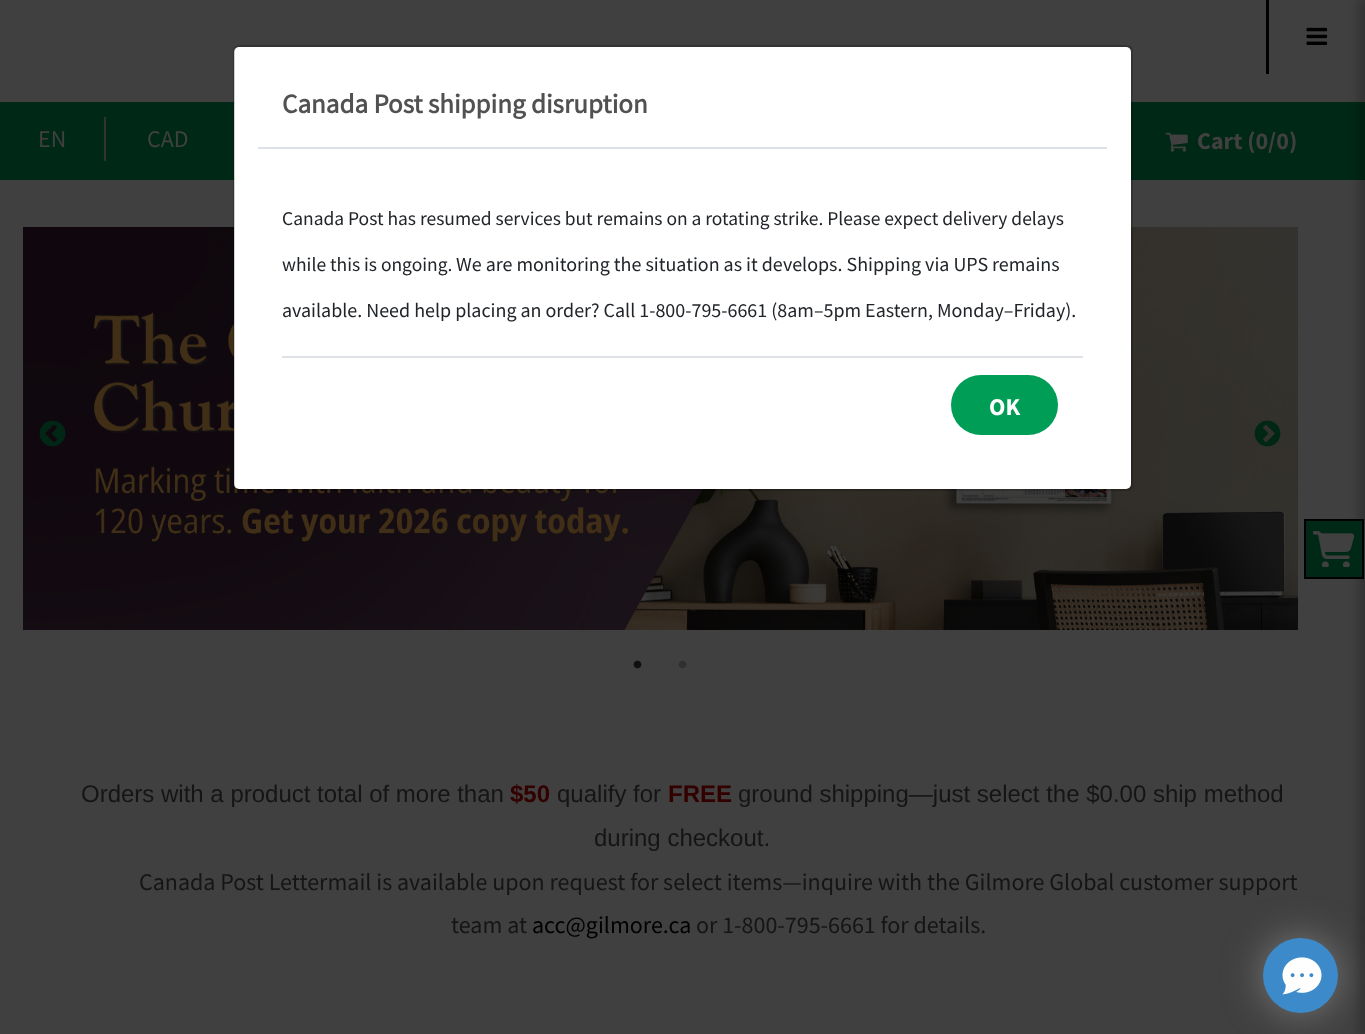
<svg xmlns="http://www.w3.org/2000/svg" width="1365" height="1034">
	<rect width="100%" height="100%" fill="#404040" />
	<rect x="0" y="102" width="1365" height="78" fill="#002816" />
	<image x="23" y="227" width="1275" height="403" href="assets/img4.png" />
	<rect x="234" y="47" width="897" height="442" rx="5" fill="#FFFFFF" />
	<rect x="234" y="46" width="898" height="444" rx="5" fill="none" stroke="#000000" stroke-opacity="0.18" stroke-width="2" />
	<rect x="258" y="147" width="849" height="2" fill="#DEE2E6" />
	<text x="282" y="113" font-family="'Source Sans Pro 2'" font-size="27" font-weight="700" fill="#515151">Canada Post shipping disruption</text>
	<g font-family="Source Sans Pro" font-size="19.5" fill="#212529">
		<text x="282" y="225">Canada Post has resumed services but remains on a rotating strike. Please expect delivery delays</text>
		<text x="282" y="271">while this is ongoing.</text>
	</g>
	<g font-family="Source Sans Pro" font-size="20" fill="#212529">
		<text x="456" y="271">We are monitoring the situation as it develops. Shipping via UPS remains</text>
		<text x="282" y="317">available. Need help placing an order? Call 1-800-795-6661 (8am–5pm Eastern, Monday–Friday).</text>
	</g>
	<rect x="282" y="356" width="801" height="2" fill="#DEE2E6" />
	<rect x="951" y="375" width="107" height="60" rx="30" fill="#009D57" />
	<text x="989" y="415" font-family="Source Sans Pro" font-size="24" font-weight="700" fill="#FFFFFF">OK</text>
	<rect x="1266" y="0" width="3" height="74" fill="#000000" />
	<image x="1306" y="27" width="22" height="18" href="assets/img1.png" />
	<rect x="104" y="117" width="2" height="44" fill="#333333" />
	<g font-family="Source Sans Pro" font-size="24" fill="#404040">
		<text x="38" y="147">EN</text>
		<text x="147" y="147">CAD</text>
	</g>
	<image x="1165" y="132" width="23" height="20" href="assets/img2.png" />
	<text x="1197" y="149" font-family="Source Sans Pro" font-size="24" font-weight="700" fill="#404040">Cart (0/0)</text>
	<rect x="1358" y="0" width="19" height="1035" fill="#000000" fill-opacity="0.2" filter="blur(4px)" />
	<rect x="1305" y="520" width="58" height="58" fill="#002816" stroke="#000000" stroke-width="2" />
	<image x="1313" y="531" width="42" height="36" href="assets/img3.png" />
	<image x="39" y="420" width="27" height="27" href="assets/img5.png" />
	<image x="1254" y="420" width="27" height="27" href="assets/img6.png" />
	<image x="633" y="660" width="9" height="9" href="assets/img7.png" />
	<image x="678" y="660" width="9" height="9" href="assets/img8.png" />
	<text x="81" y="802" font-family="Liberation Sans" font-size="24" fill="#151515">Orders with a product total of more than</text>
	<text x="510" y="802" font-family="Liberation Sans" font-size="24" font-weight="700" fill="#330000">$50</text>
	<text x="557" y="802" font-family="Liberation Sans" font-size="24" fill="#151515">qualify for</text>
	<text x="668" y="802" font-family="Liberation Sans" font-size="24" font-weight="700" fill="#330000">FREE</text>
	<g font-family="Liberation Sans" font-size="24" fill="#151515">
		<text x="738" y="802">ground shipping—just select the $0.00 ship method</text>
		<text x="594" y="846">during checkout.</text>
	</g>
	<g font-family="Source Sans Pro" font-size="24" fill="#151515">
		<text x="139" y="890">Canada Post Lettermail is available upon request for select items—inquire with the Gilmore Global customer support</text>
		<text x="451" y="933">team at</text>
	</g>
	<text x="532" y="933" font-family="Source Sans Pro" font-size="24" fill="#000000">acc@gilmore.ca</text>
	<text x="696" y="933" font-family="Source Sans Pro" font-size="24" fill="#151515">or 1-800-795-6661 for details.</text>
	<rect x="1263" y="938" width="75" height="75" rx="37.5" fill="#7A7A7A" filter="blur(19px)" />
	<circle cx="1300.5" cy="975.5" r="37.5" fill="#3C8AC9" />
	<image x="1282" y="957" width="40" height="38" href="assets/img9.png" />
</svg>
